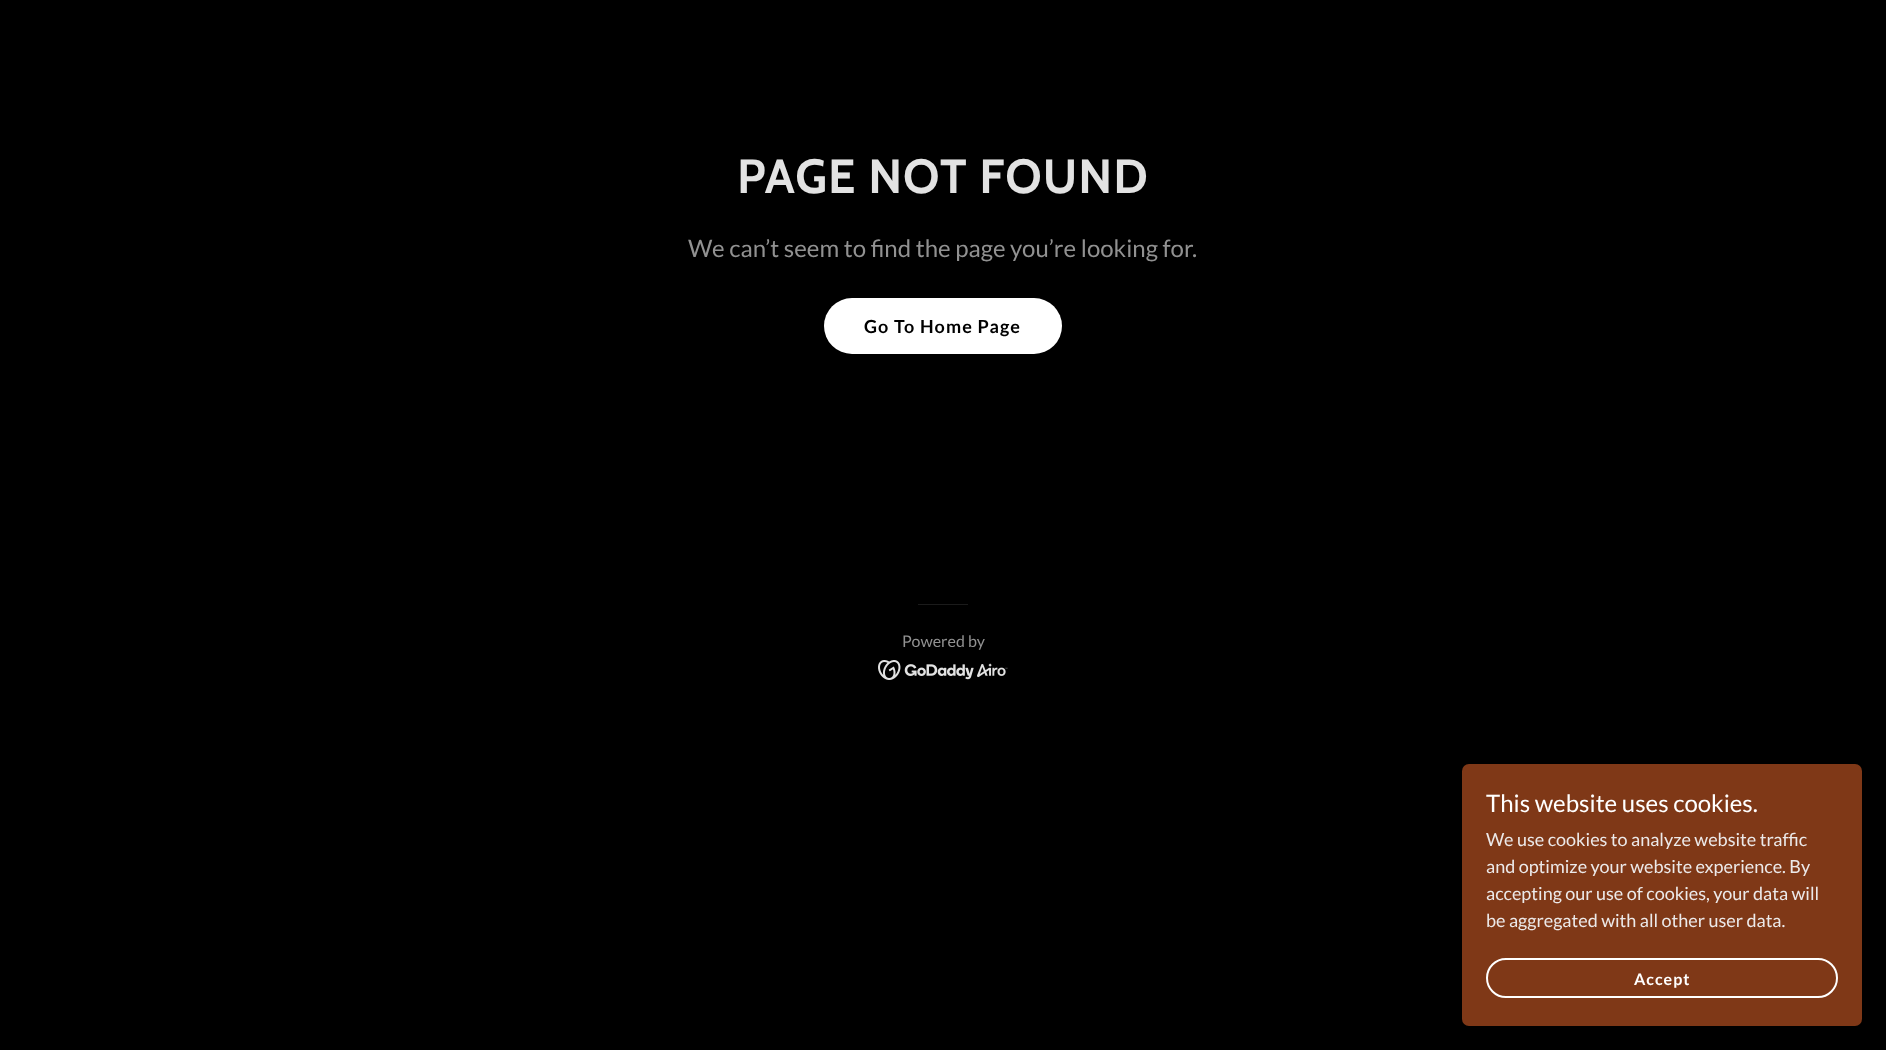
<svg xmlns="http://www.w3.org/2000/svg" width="1886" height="1050">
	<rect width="100%" height="100%" fill="#000000" />
	<text x="737" y="193" font-family="Cabin" font-size="48" font-weight="700" letter-spacing="1" fill="#E2E2E2">PAGE NOT FOUND</text>
	<text x="688" y="257" font-family="Lato" font-size="24" fill="#919191">We can’t seem to find the page you’re looking for.</text>
	<rect x="824" y="298" width="238" height="56" rx="28" fill="#FFFFFF" />
	<text x="864" y="333" font-family="Lato" font-size="18" font-weight="700" letter-spacing="1.1" fill="#000000">Go To Home Page</text>
	<rect x="918" y="604" width="50" height="1" fill="#1B1B1B" />
	<text x="902" y="647" font-family="Lato" font-size="16" fill="#919191">Powered by</text>
	<image x="878" y="660" width="130" height="20" href="assets/img1.png" />
	<rect x="1462" y="764" width="400" height="262" rx="7" fill="#7F3817" />
	<text x="1486" y="812" font-family="Lato" font-size="24" fill="#FFFFFF">This website uses cookies.</text>
	<g font-family="Lato" font-size="18" fill="#ECE9E9">
		<text x="1486" y="846">We use cookies to analyze website traffic</text>
		<text x="1486" y="873">and optimize your website experience. By</text>
		<text x="1486" y="900">accepting our use of cookies, your data will</text>
		<text x="1486" y="927">be aggregated with all other user data.</text>
	</g>
	<rect x="1487" y="959" width="350" height="38" rx="19" fill="none" stroke="#FFFFFF" stroke-width="2" />
	<text x="1634" y="985" font-family="Lato" font-size="16" font-weight="700" letter-spacing="1" fill="#FFFFFF">Accept</text>
</svg>
